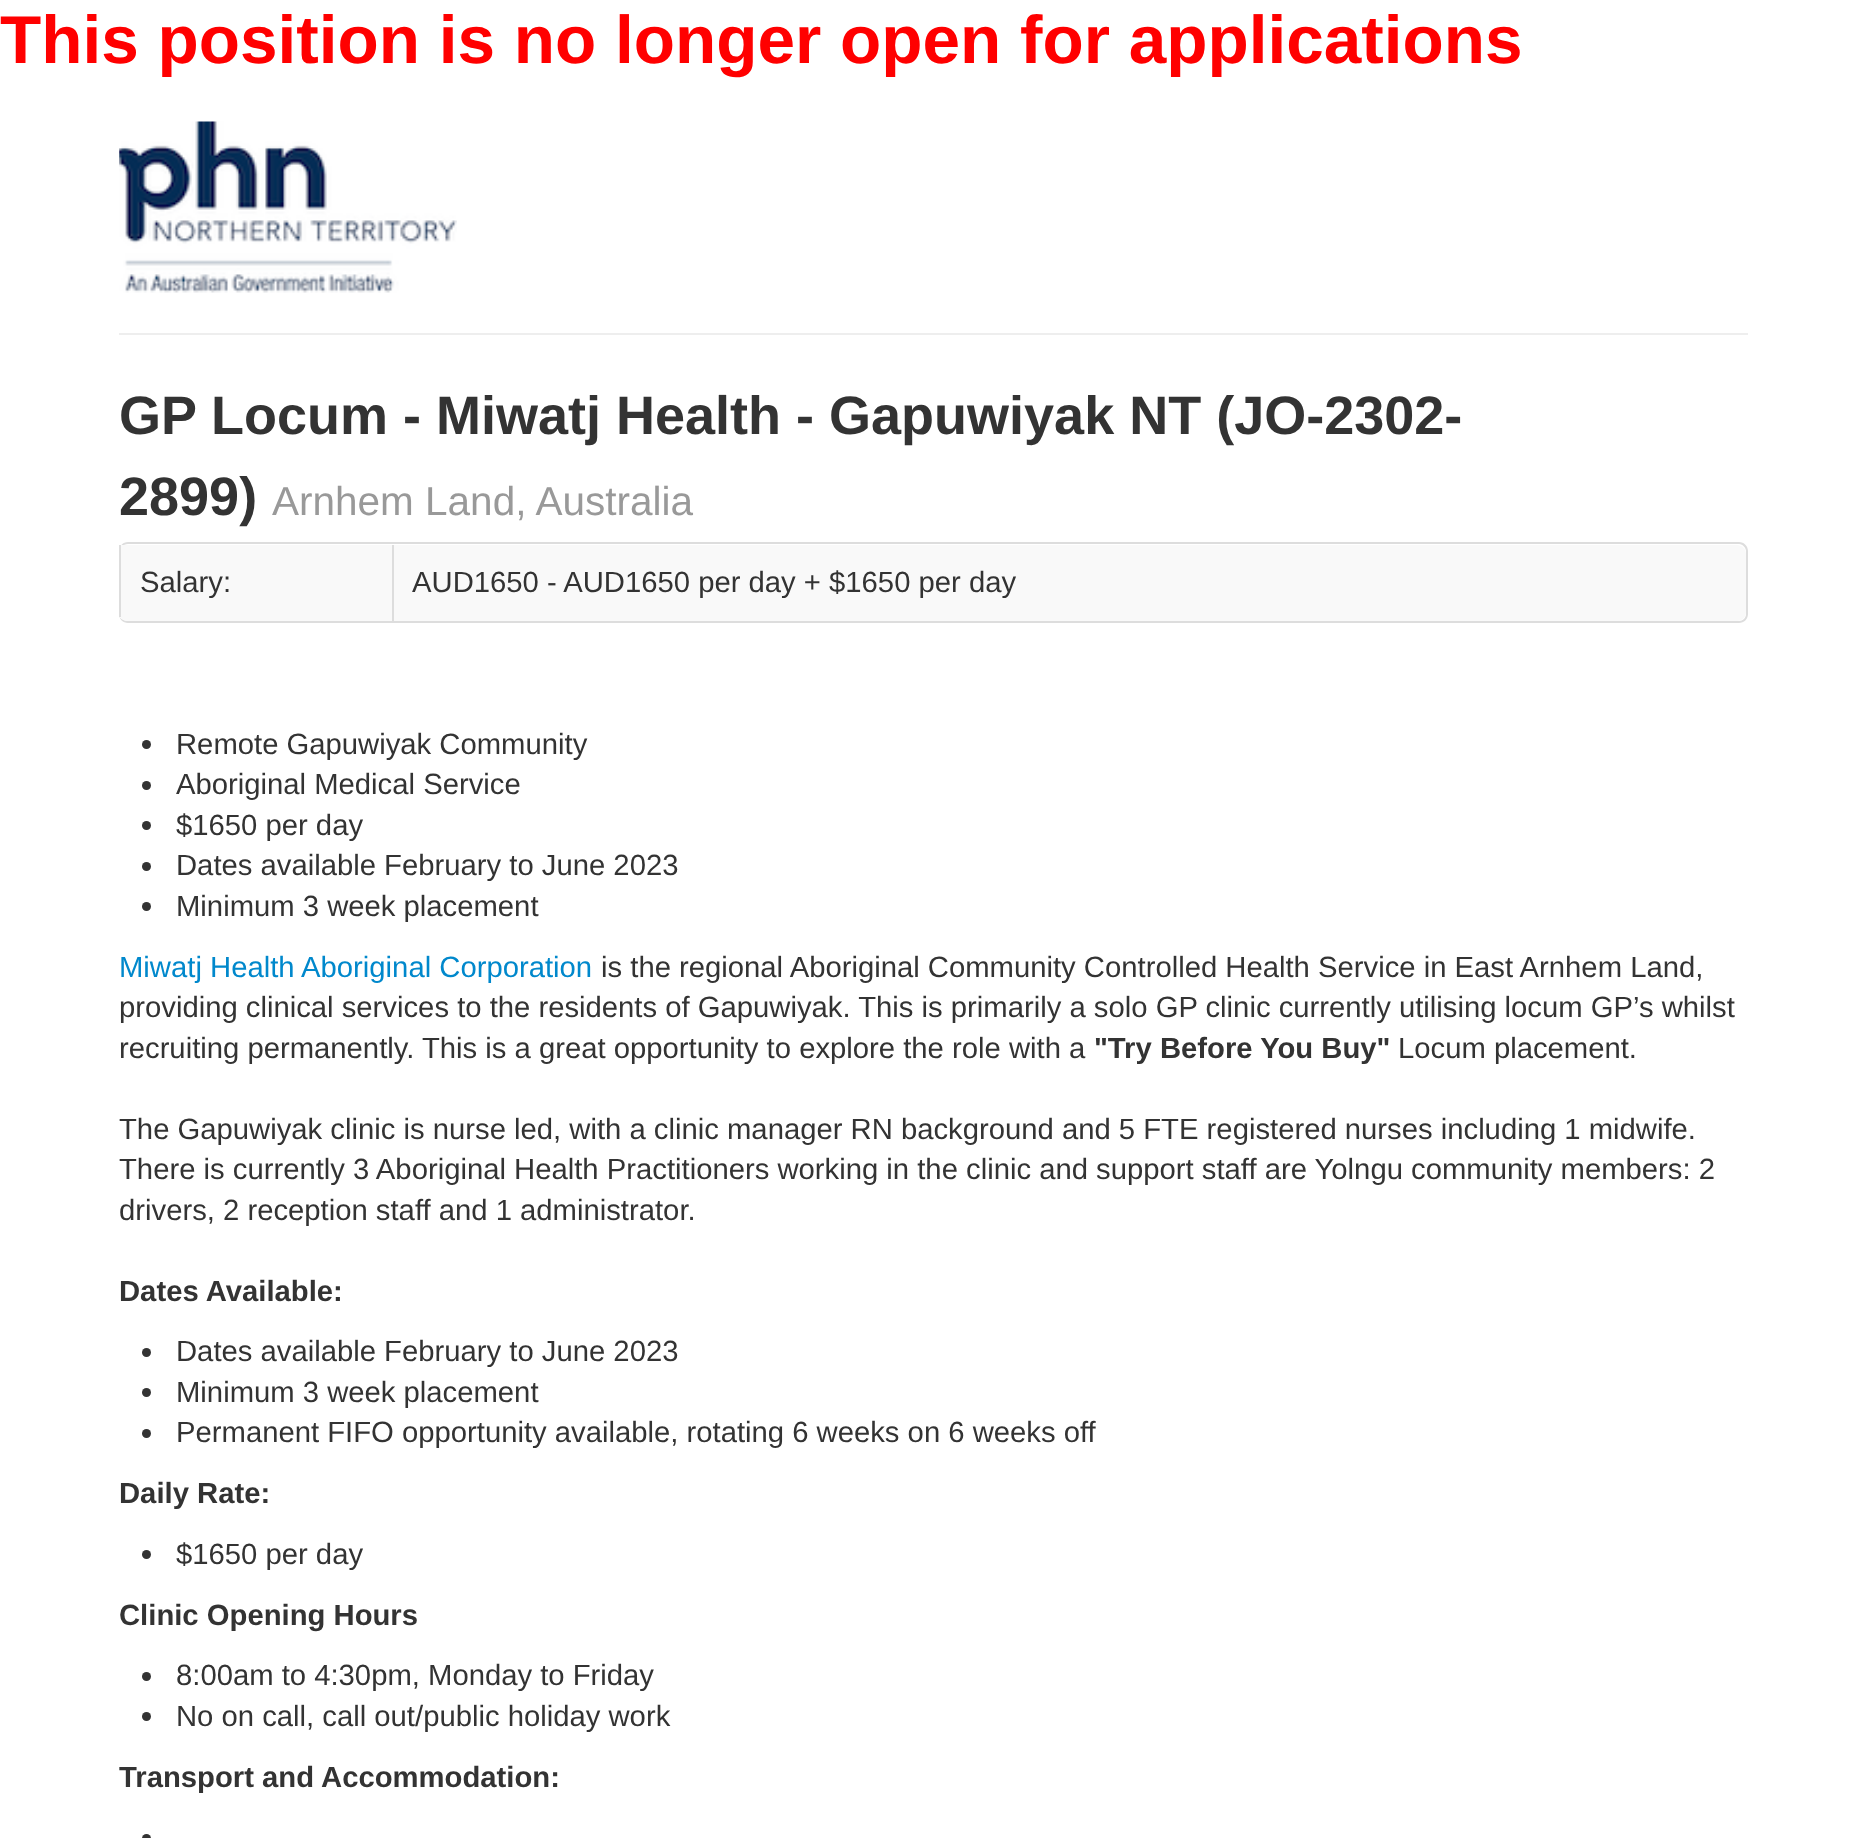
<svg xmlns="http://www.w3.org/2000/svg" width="1866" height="1838">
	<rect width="100%" height="100%" fill="#FFFFFF" />
	<text x="0" y="63" font-family="Liberation Sans" font-size="67.5" font-weight="700" fill="#FF0000">This position is no longer open for applications</text>
	<rect x="119" y="333" width="1629" height="2" fill="#EEEEEE" />
	<image x="119" y="121" width="338" height="172" href="assets/img1.png" />
	<g font-family="Liberation Sans" font-size="54" font-weight="700" fill="#333333">
		<text x="119" y="434">GP Locum - Miwatj Health - Gapuwiyak NT (JO-2302-</text>
		<text x="119" y="515">2899)</text>
	</g>
	<text x="272" y="515" font-family="Liberation Sans" font-size="40.5" fill="#999999">Arnhem Land, Australia</text>
	<path d="M128 542H1739C1744 542 1748 546 1748 551V614C1748 619 1744 623 1739 623H128C123 623 119 619 119 614V551C119 546 123 542 128 542ZM128 544H1739C1743 544 1746 548 1746 551V614C1746 618 1743 621 1739 621H128C123 621 119 618 119 614V551C119 548 123 544 128 544Z" fill="#DDDDDD" fill-rule="evenodd" />
	<path d="M119 545H392V621H128C123 621 119 617 119 612Z" fill="#F9F9F9" />
	<rect x="119" y="545" width="2" height="72" fill="#DDDDDD" />
	<text x="140" y="592" font-family="Liberation Sans" font-size="29.25" fill="#333333">Salary:</text>
	<path d="M392 545H1737C1742 545 1746 549 1746 554V612C1746 617 1742 621 1737 621H392Z" fill="#F9F9F9" />
	<rect x="392" y="545" width="2" height="76" fill="#DDDDDD" />
	<text x="412" y="592" font-family="Liberation Sans" font-size="29.25" fill="#333333">AUD1650 - AUD1650 per day + $1650 per day</text>
	<circle cx="146.5" cy="744.5" r="4.5" fill="#333333" />
	<text x="176" y="754" font-family="Liberation Sans" font-size="29.25" fill="#333333">Remote Gapuwiyak Community</text>
	<circle cx="146.5" cy="785.5" r="4.5" fill="#333333" />
	<text x="176" y="794" font-family="Liberation Sans" font-size="29.25" fill="#333333">Aboriginal Medical Service</text>
	<circle cx="146.5" cy="825.5" r="4.5" fill="#333333" />
	<text x="176" y="835" font-family="Liberation Sans" font-size="29.25" fill="#333333">$1650 per day</text>
	<circle cx="146.5" cy="866.5" r="4.5" fill="#333333" />
	<text x="176" y="875" font-family="Liberation Sans" font-size="29.25" fill="#333333">Dates available February to June 2023</text>
	<circle cx="146.5" cy="906.5" r="4.5" fill="#333333" />
	<text x="176" y="916" font-family="Liberation Sans" font-size="29.25" fill="#333333">Minimum 3 week placement</text>
	<text x="119" y="977" font-family="Liberation Sans" font-size="29.25" fill="#0088CC">Miwatj Health Aboriginal Corporation</text>
	<g font-family="Liberation Sans" font-size="29.25" fill="#333333">
		<text x="601" y="977">is the regional Aboriginal Community Controlled Health Service in East Arnhem Land,</text>
		<text x="119" y="1017">providing clinical services to the residents of Gapuwiyak. This is primarily a solo GP clinic currently utilising locum GP’s whilst</text>
		<text x="119" y="1058">recruiting permanently. This is a great opportunity to explore the role with a</text>
	</g>
	<text x="1094" y="1058" font-family="Liberation Sans" font-size="29.25" font-weight="700" fill="#333333">"Try Before You Buy"</text>
	<g font-family="Liberation Sans" font-size="29.25" fill="#333333">
		<text x="1398" y="1058">Locum placement.</text>
		<text x="119" y="1139">The Gapuwiyak clinic is nurse led, with a clinic manager RN background and 5 FTE registered nurses including 1 midwife.</text>
		<text x="119" y="1179">There is currently 3 Aboriginal Health Practitioners working in the clinic and support staff are Yolngu community members: 2</text>
		<text x="119" y="1220">drivers, 2 reception staff and 1 administrator.</text>
	</g>
	<text x="119" y="1301" font-family="Liberation Sans" font-size="29.25" font-weight="700" fill="#333333">Dates Available:</text>
	<circle cx="146.5" cy="1352.5" r="4.5" fill="#333333" />
	<text x="176" y="1361" font-family="Liberation Sans" font-size="29.25" fill="#333333">Dates available February to June 2023</text>
	<circle cx="146.5" cy="1392.5" r="4.5" fill="#333333" />
	<text x="176" y="1402" font-family="Liberation Sans" font-size="29.25" fill="#333333">Minimum 3 week placement</text>
	<circle cx="146.5" cy="1433.5" r="4.5" fill="#333333" />
	<text x="176" y="1442" font-family="Liberation Sans" font-size="29.25" fill="#333333">Permanent FIFO opportunity available, rotating 6 weeks on 6 weeks off</text>
	<text x="119" y="1503" font-family="Liberation Sans" font-size="29.25" font-weight="700" fill="#333333">Daily Rate:</text>
	<circle cx="146.5" cy="1554.5" r="4.5" fill="#333333" />
	<text x="176" y="1564" font-family="Liberation Sans" font-size="29.25" fill="#333333">$1650 per day</text>
	<text x="119" y="1625" font-family="Liberation Sans" font-size="29.25" font-weight="700" fill="#333333">Clinic Opening Hours</text>
	<circle cx="146.5" cy="1676.5" r="4.5" fill="#333333" />
	<text x="176" y="1685" font-family="Liberation Sans" font-size="29.25" fill="#333333">8:00am to 4:30pm, Monday to Friday</text>
	<circle cx="146.5" cy="1716.5" r="4.5" fill="#333333" />
	<text x="176" y="1726" font-family="Liberation Sans" font-size="29.25" fill="#333333">No on call, call out/public holiday work</text>
	<text x="119" y="1787" font-family="Liberation Sans" font-size="29.25" font-weight="700" fill="#333333">Transport and Accommodation:</text>
	<circle cx="146.5" cy="1838.5" r="4.5" fill="#333333" />
</svg>
